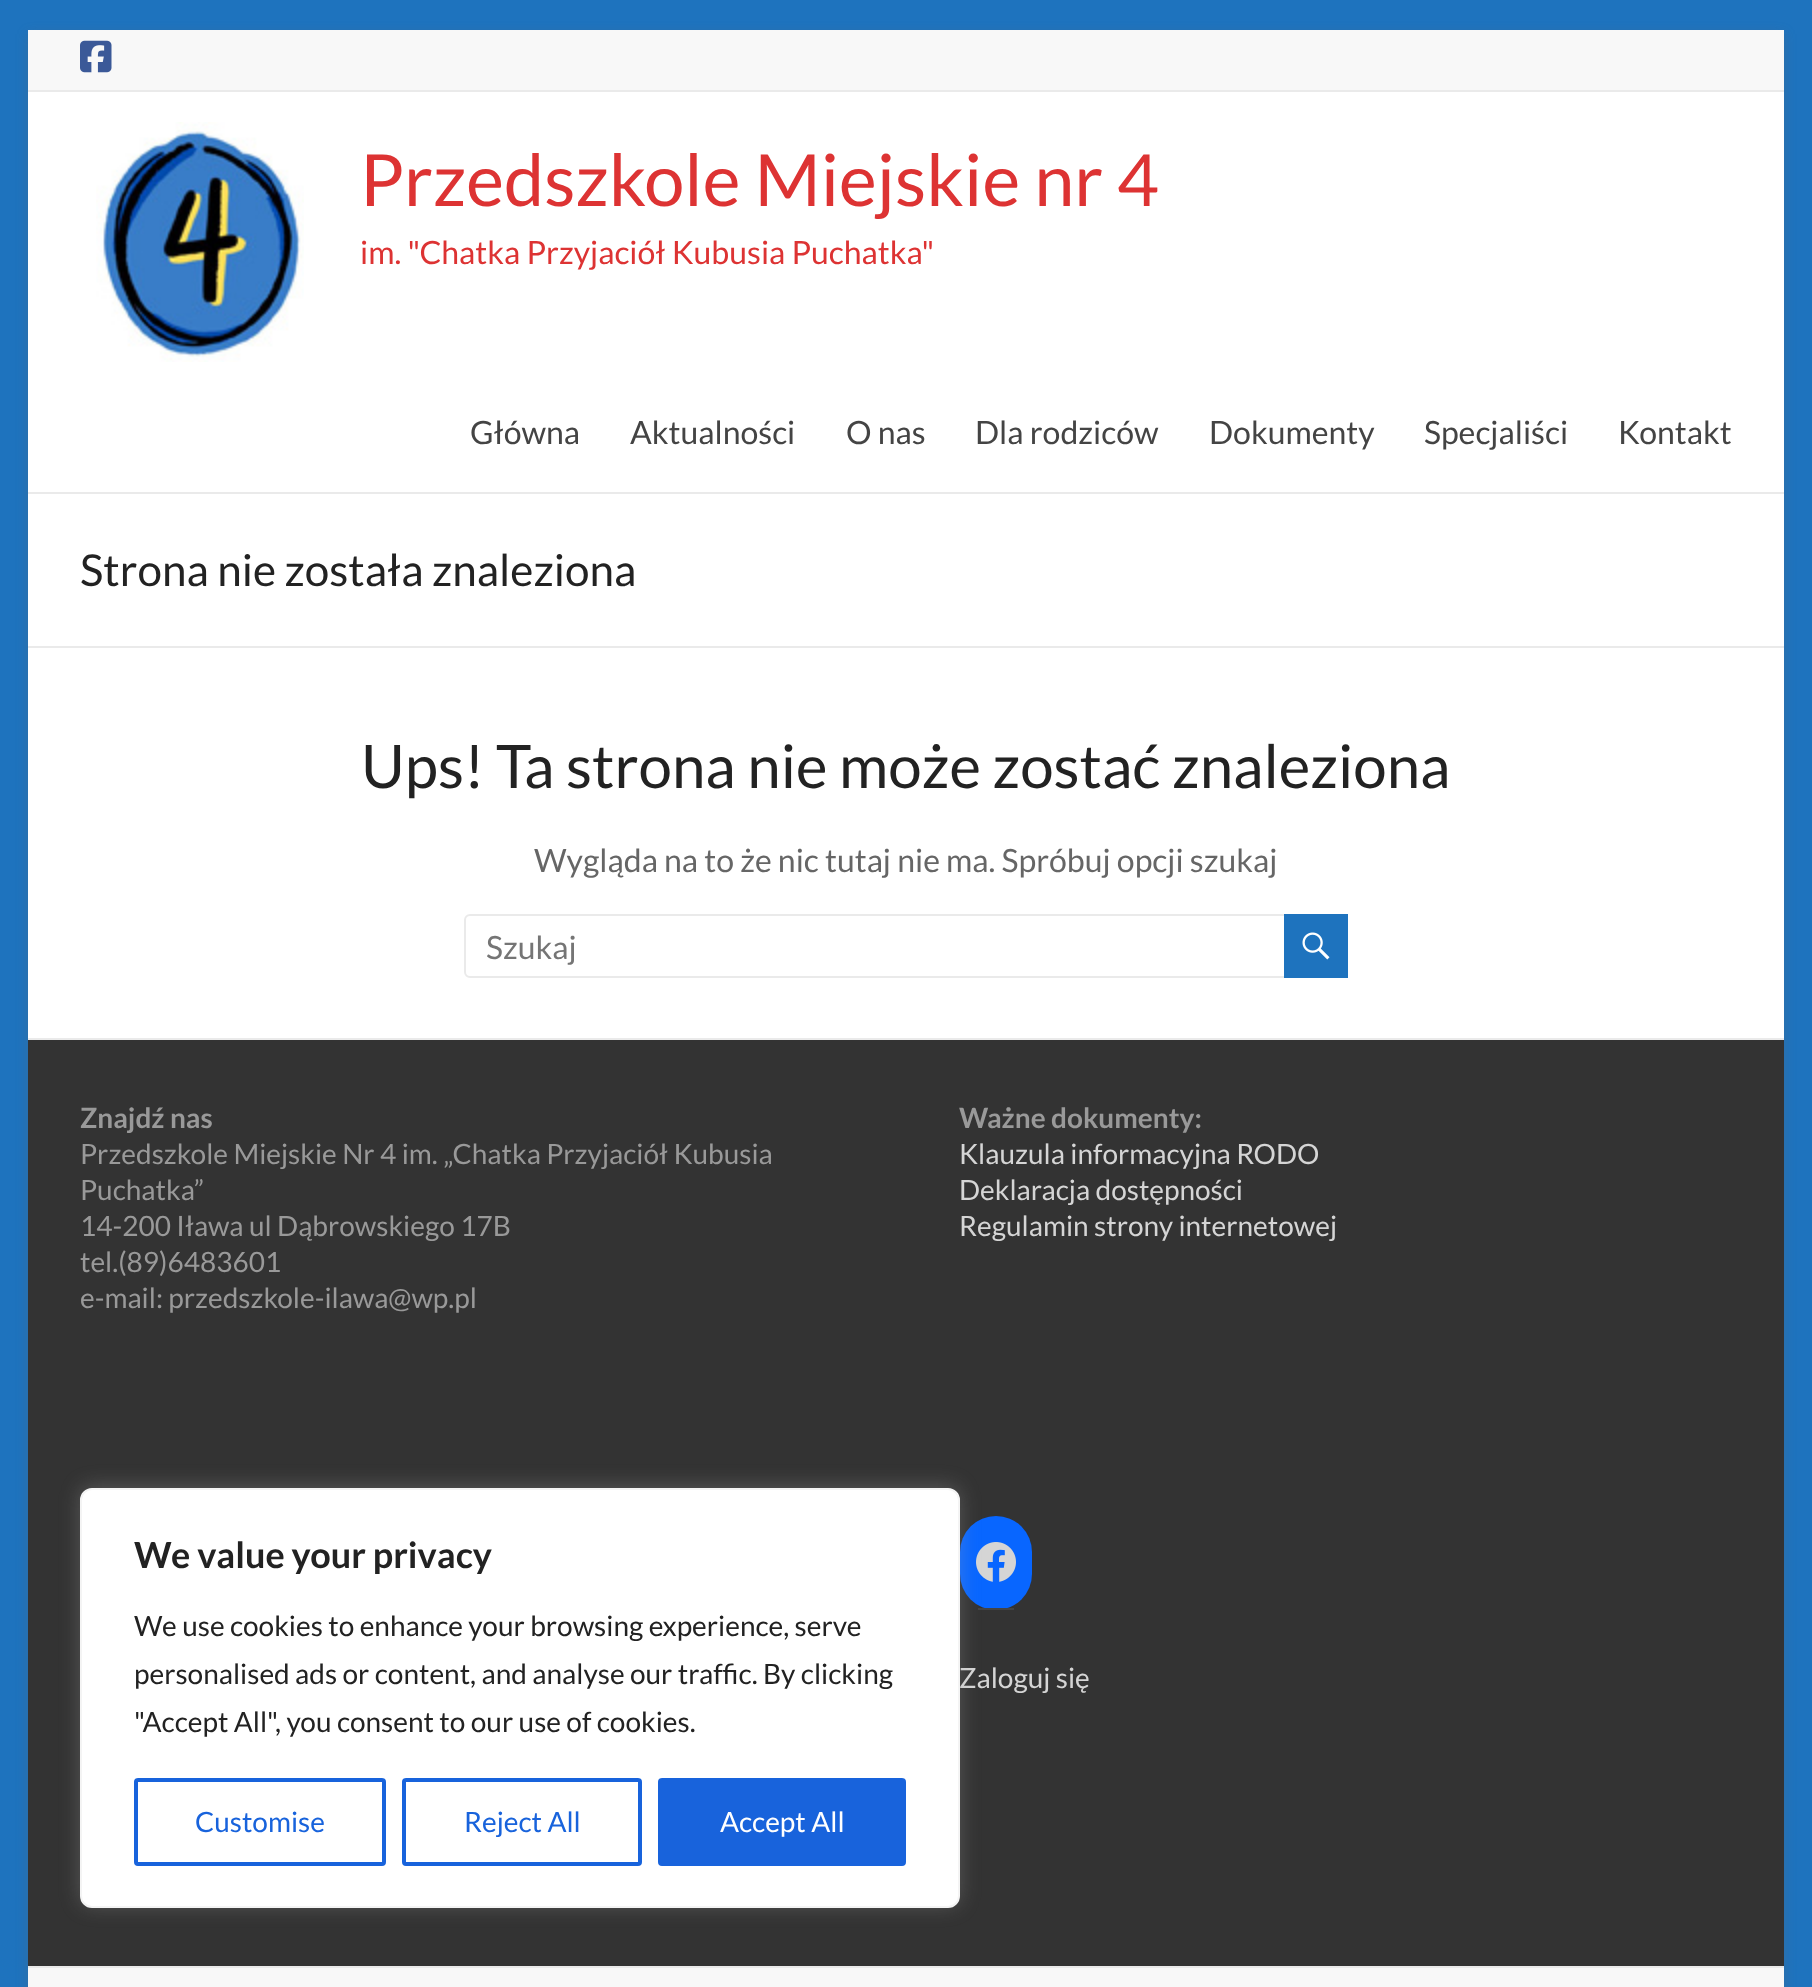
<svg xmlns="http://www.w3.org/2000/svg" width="1812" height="1987">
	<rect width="100%" height="100%" fill="#1E73BE" />
	<rect x="28" y="34" width="1756" height="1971" fill="#646464" fill-opacity="0.3" filter="blur(6px)" />
	<rect x="28" y="92" width="1756" height="946" fill="#FFFFFF" />
	<rect x="28" y="30" width="1756" height="60" fill="#F8F8F8" />
	<rect x="28" y="90" width="1756" height="2" fill="#EAEAEA" />
	<image x="80" y="40" width="32" height="33" href="assets/img1.png" />
	<rect x="28" y="492" width="1756" height="2" fill="#EAEAEA" />
	<image x="96" y="122" width="208" height="240" href="assets/img2.png" />
	<text x="360" y="206" font-family="Lato" font-size="72" fill="#DD3333">Przedszkole Miejskie nr 4</text>
	<text x="360" y="264" font-family="Lato" font-size="32" fill="#DD3333">im. "Chatka Przyjaciół Kubusia Puchatka"</text>
	<g font-family="Lato" font-size="32" fill="#444444">
		<text x="470" y="444">Główna</text>
		<text x="630" y="444">Aktualności</text>
		<text x="846" y="444">O nas</text>
		<text x="975" y="444">Dla rodziców</text>
		<text x="1209" y="444">Dokumenty</text>
		<text x="1424" y="444">Specjaliści</text>
		<text x="1618" y="444">Kontakt</text>
	</g>
	<rect x="28" y="646" width="1756" height="2" fill="#EAEAEA" />
	<text x="80" y="586" font-family="Lato" font-size="44" fill="#222222">Strona nie została znaleziona</text>
	<text x="361" y="788" font-family="Lato" font-size="60" fill="#222222">Ups! Ta strona nie może zostać znaleziona</text>
	<text x="534" y="872" font-family="Lato" font-size="32" fill="#666666">Wygląda na to że nic tutaj nie ma. Spróbuj opcji szukaj</text>
	<rect x="465" y="915" width="824" height="62" rx="5" fill="none" stroke="#EAEAEA" stroke-width="2" />
	<text x="486" y="959" font-family="Lato" font-size="32" fill="#757575">Szukaj</text>
	<rect x="1284" y="914" width="64" height="64" fill="#1E73BE" />
	<image x="1302" y="932" width="28" height="28" href="assets/img3.png" />
	<rect x="28" y="1040" width="1756" height="926" fill="#333333" />
	<rect x="28" y="1038" width="1756" height="2" fill="#EAEAEA" />
	<text x="80" y="1128" font-family="Lato" font-size="28" font-weight="700" fill="#999999">Znajdź nas</text>
	<g font-family="Lato" font-size="28" fill="#999999">
		<text x="80" y="1164">Przedszkole Miejskie Nr 4 im. „Chatka Przyjaciół Kubusia</text>
		<text x="80" y="1200">Puchatka”</text>
		<text x="80" y="1236">14-200 Iława ul Dąbrowskiego 17B</text>
		<text x="80" y="1272">tel.(89)6483601</text>
		<text x="80" y="1308">e-mail: przedszkole-ilawa@wp.pl</text>
	</g>
	<text x="959" y="1128" font-family="Lato" font-size="28" font-weight="700" fill="#999999">Ważne dokumenty:</text>
	<g font-family="Lato" font-size="28" fill="#D5D5D5">
		<text x="959" y="1164">Klauzula informacyjna RODO</text>
		<text x="959" y="1200">Deklaracja dostępności</text>
		<text x="959" y="1236">Regulamin strony internetowej</text>
	</g>
	<rect x="960" y="1516" width="72" height="94" rx="36" fill="#0866FF" />
	<rect x="978" y="1608" width="36" height="2" fill="#444444" />
	<image x="976" y="1542" width="40" height="40" href="assets/img4.png" />
	<text x="959" y="1688" font-family="Lato" font-size="28" fill="#D5D5D5">Zaloguj się</text>
	<rect x="28" y="1968" width="1756" height="19" fill="#F8F8F8" />
	<rect x="28" y="1966" width="1756" height="2" fill="#EAEAEA" />
	<rect x="80" y="1486" width="880" height="420" rx="12" fill="#ACABAB" fill-opacity="0.3" filter="blur(10px)" />
	<rect x="81" y="1489" width="878" height="418" rx="11" fill="#FFFFFF" stroke="#F4F4F4" stroke-width="2" />
	<text x="134" y="1568" font-family="Lato" font-size="36" font-weight="700" fill="#222222">We value your privacy</text>
	<g font-family="Lato" font-size="28" fill="#222222">
		<text x="134" y="1636">We use cookies to enhance your browsing experience, serve</text>
		<text x="134" y="1684">personalised ads or content, and analyse our traffic. By clicking</text>
		<text x="134" y="1732">"Accept All", you consent to our use of cookies.</text>
	</g>
	<rect x="136" y="1780" width="248" height="84" rx="2" fill="none" stroke="#1863DC" stroke-width="4" />
	<text x="195" y="1832" font-family="Lato" font-size="28" fill="#1863DC">Customise</text>
	<rect x="404" y="1780" width="236" height="84" rx="2" fill="none" stroke="#1863DC" stroke-width="4" />
	<text x="464" y="1832" font-family="Lato" font-size="28" fill="#1863DC">Reject All</text>
	<rect x="660" y="1780" width="244" height="84" rx="2" fill="#1863DC" stroke="#1863DC" stroke-width="4" />
	<text x="720" y="1832" font-family="Lato" font-size="28" fill="#FFFFFF">Accept All</text>
</svg>
